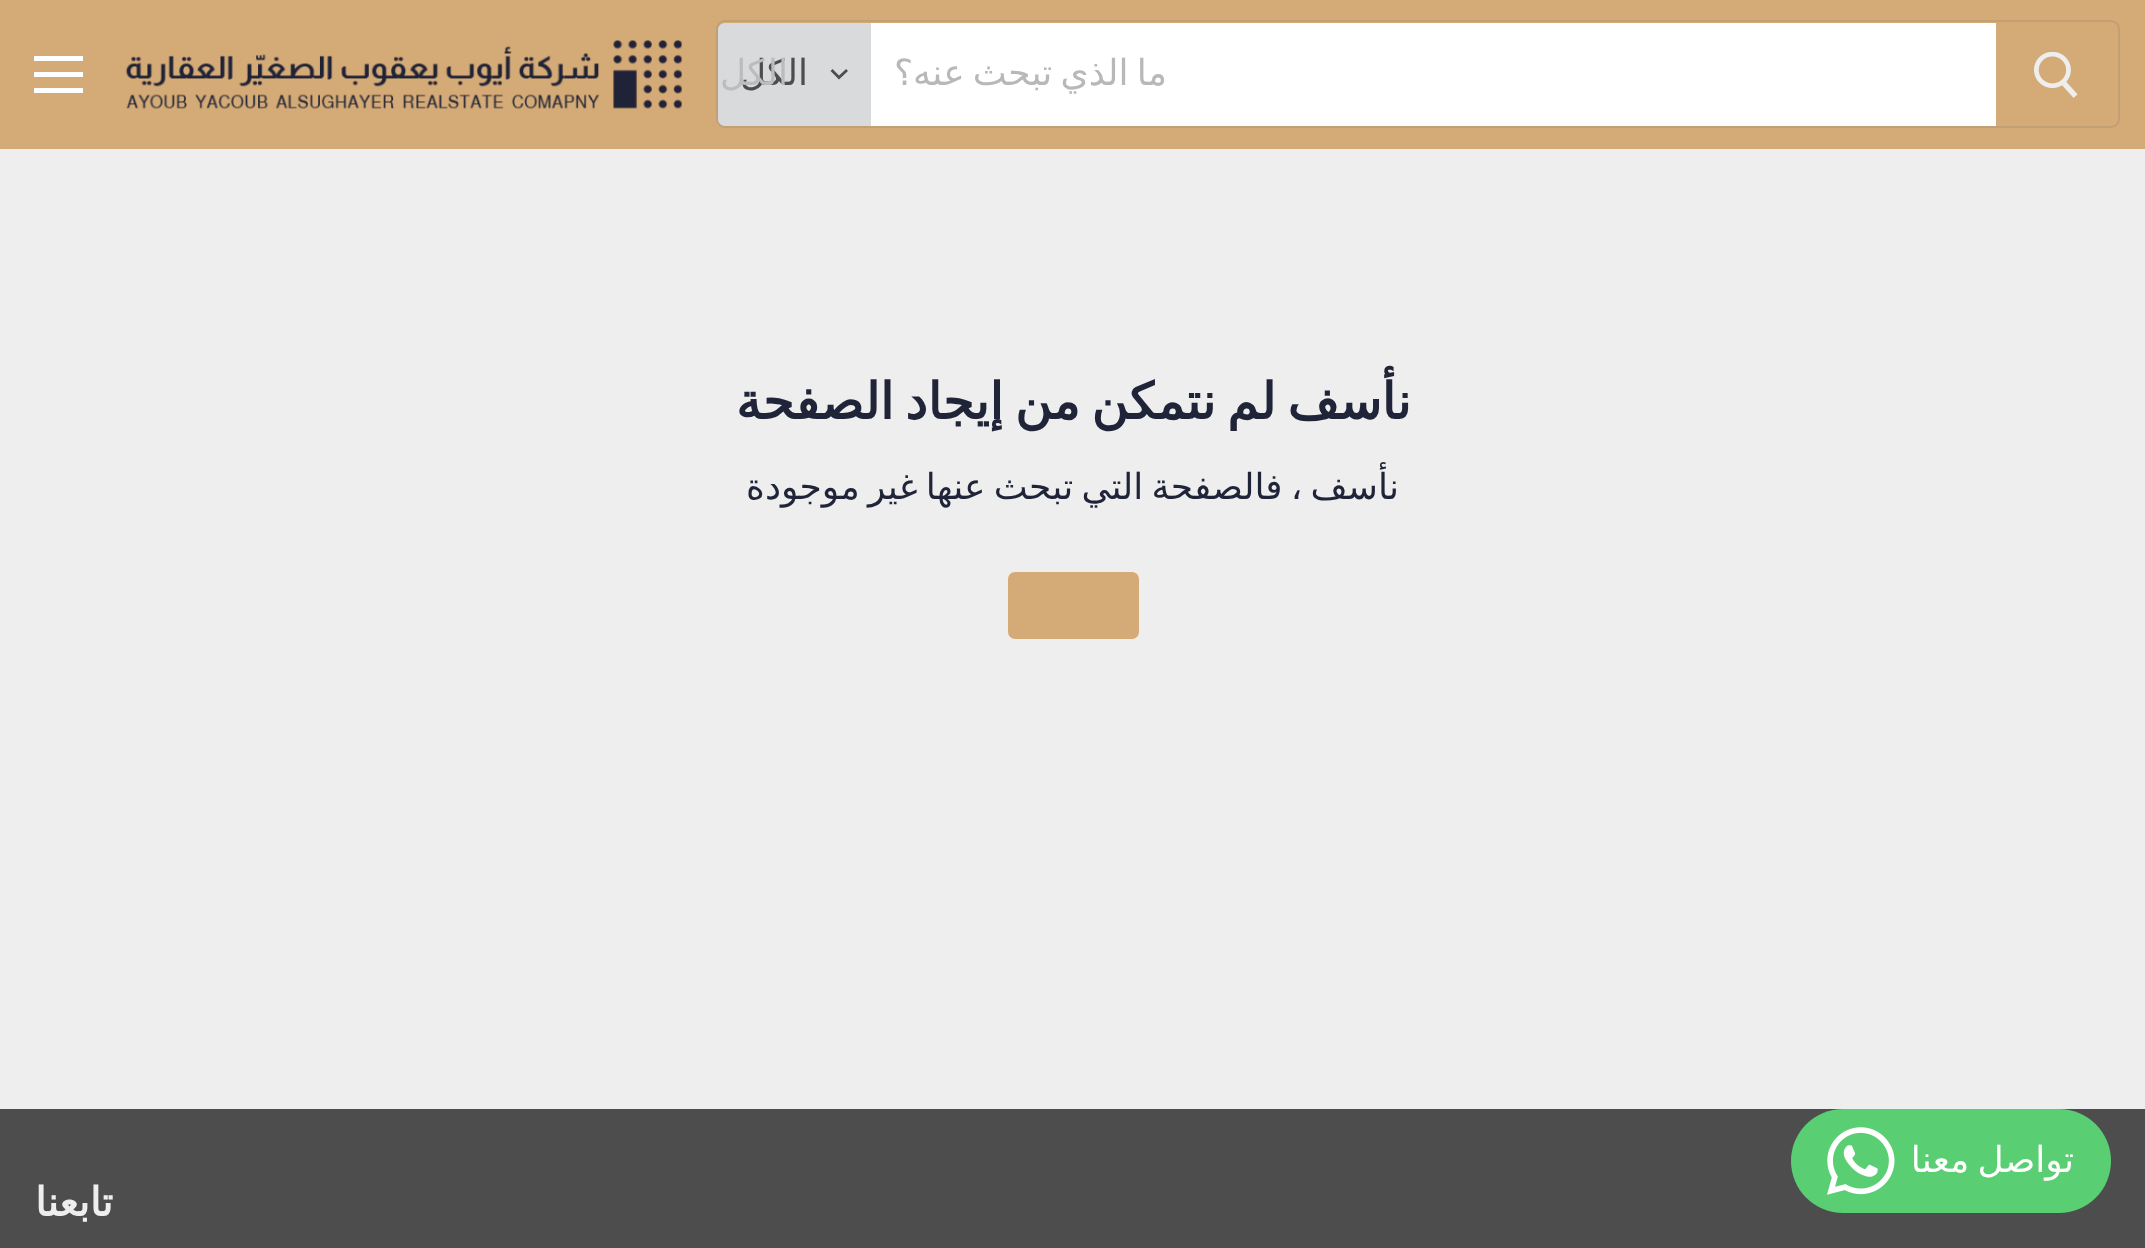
<svg xmlns="http://www.w3.org/2000/svg" width="2145" height="1248">
	<rect width="100%" height="100%" fill="#EEEEEE" />
	<rect x="0" y="0" width="2145" height="149" fill="#D4AB77" />
	<rect x="717" y="21" width="1402" height="106" rx="8" fill="none" stroke="#777777" stroke-opacity="0.2" stroke-width="2" />
	<image x="2034" y="52" width="44" height="46" href="assets/img1.png" />
	<rect x="871" y="23" width="1125" height="103" fill="#FFFFFF" />
	<text x="1167" y="85" word-spacing="-3.25" font-family="DejaVu Sans" font-size="36" direction="rtl" fill="#B8B8B8">ما الذي تبحث عنه؟</text>
	<path d="M725 23H871V126H725C721 126 718 123 718 119V30C718 26 721 23 725 23Z" fill="#D9DADC" />
	<text x="808" y="85" font-family="DejaVu Sans" font-size="36" direction="rtl" fill="#4D4D4D">الكل</text>
	<text x="788" y="85" font-family="DejaVu Sans" font-size="36" direction="rtl" fill="#BBBCBE">الكل</text>
	<path d="M839 77.5L846 71M839 77.5L832.5 71" fill="none" stroke="#4D4D4D" stroke-width="2.8" stroke-linecap="square" />
	<image x="125" y="40" width="557" height="69" href="assets/img2.png" />
	<rect x="34" y="56" width="49" height="5" fill="#FFFFFF" />
	<rect x="34" y="72" width="49" height="5" fill="#FFFFFF" />
	<rect x="34" y="88" width="49" height="5" fill="#FFFFFF" />
	<text x="1411" y="419" word-spacing="-4.75" font-family="DejaVu Sans" font-size="50.4" font-weight="700" direction="rtl" fill="#1F2438">نأسف لم نتمكن من إيجاد الصفحة</text>
	<text x="1399" y="499" word-spacing="-3.25" font-family="DejaVu Sans" font-size="36" direction="rtl" fill="#1F2438">نأسف ، فالصفحة التي تبحث عنها غير موجودة</text>
	<rect x="1009" y="573" width="129" height="65" rx="6" fill="#D4AB77" stroke="#D4AB77" stroke-width="2" />
	<rect x="0" y="1109" width="2145" height="139" fill="#4D4D4D" />
	<rect x="1791" y="1109" width="320" height="104" rx="52" fill="#59CE72" />
	<text x="2074" y="1172" word-spacing="-3.25" font-family="DejaVu Sans" font-size="36" direction="rtl" fill="#FFFFFF">تواصل معنا</text>
	<image x="1827" y="1127" width="68" height="68" href="assets/img3.png" />
	<text x="113" y="1216" font-family="DejaVu Sans" font-size="40" font-weight="700" direction="rtl" fill="#EEEEEE">تابعنا</text>
</svg>
